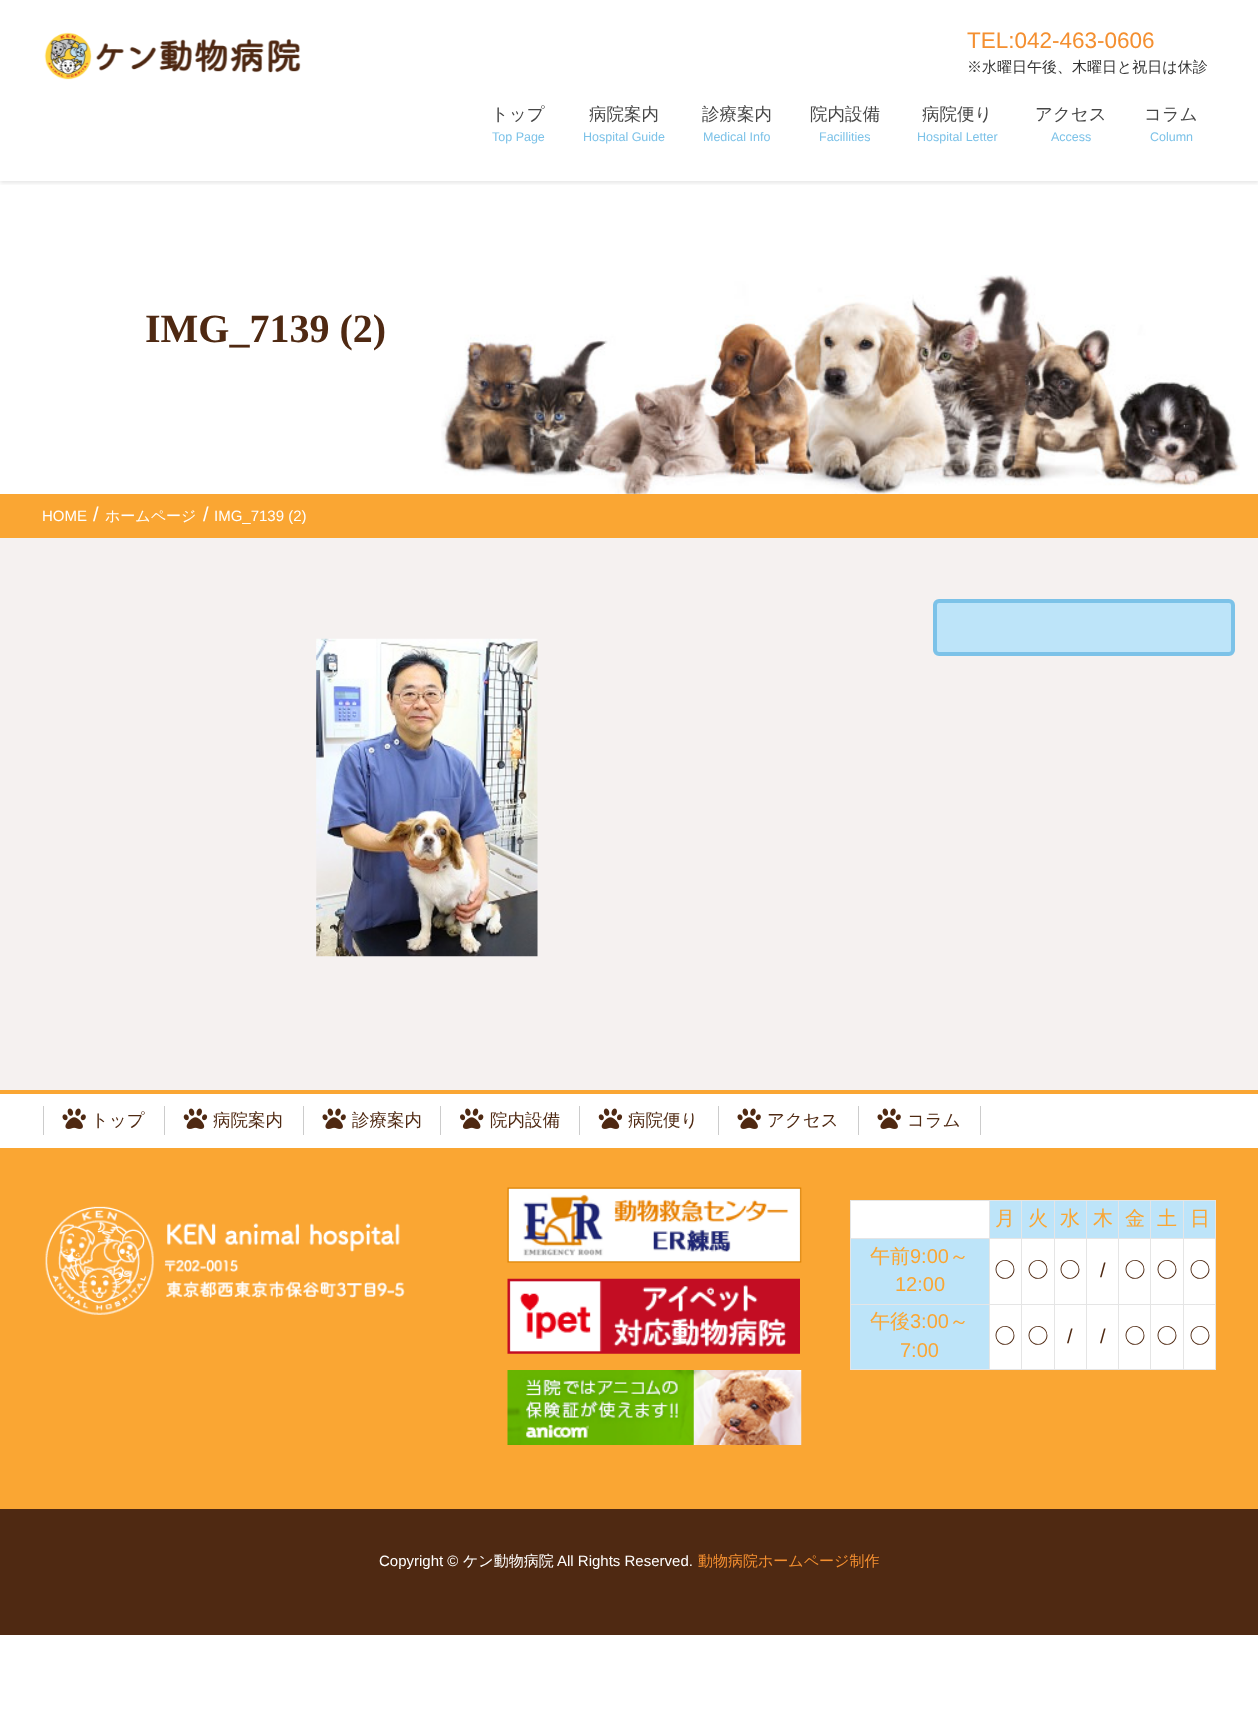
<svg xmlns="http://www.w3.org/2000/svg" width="1258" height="1722">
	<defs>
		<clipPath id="clip1"><rect x="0" y="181" width="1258" height="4" /></clipPath>
	</defs>
	<rect width="100%" height="100%" fill="#FFFFFF" />
	<g clip-path="url(#clip1)">
		<rect x="0" y="1" width="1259" height="182" fill="#000000" fill-opacity="0.1" filter="blur(2px)" />
	</g>
	<image x="44" y="32" width="257" height="48" href="assets/img1.png" />
	<text x="967" y="48" font-family="Liberation Sans" font-size="22.5" fill="#F48F30">TEL:042-463-0606</text>
	<text x="967" y="72" font-family="WenQuanYi Zen Hei" font-size="15" font-weight="500" fill="#333333">※水曜日午後、木曜日と祝日は休診</text>
	<text x="491" y="120" font-family="WenQuanYi Zen Hei" font-size="17.5" font-weight="500" fill="#464646">トップ</text>
	<text x="492" y="141" font-family="Liberation Sans" font-size="12.5" fill="#7CC2E8">Top Page</text>
	<text x="589" y="120" font-family="WenQuanYi Zen Hei" font-size="17.5" font-weight="500" fill="#464646">病院案内</text>
	<text x="583" y="141" font-family="Liberation Sans" font-size="12.5" fill="#7CC2E8">Hospital Guide</text>
	<text x="702" y="120" font-family="WenQuanYi Zen Hei" font-size="17.5" font-weight="500" fill="#464646">診療案内</text>
	<text x="703" y="141" font-family="Liberation Sans" font-size="12.5" fill="#7CC2E8">Medical Info</text>
	<text x="810" y="120" font-family="WenQuanYi Zen Hei" font-size="17.5" font-weight="500" fill="#464646">院内設備</text>
	<text x="819" y="141" font-family="Liberation Sans" font-size="12.5" fill="#7CC2E8">Facillities</text>
	<text x="922" y="120" font-family="WenQuanYi Zen Hei" font-size="17.5" font-weight="500" fill="#464646">病院便り</text>
	<text x="917" y="141" font-family="Liberation Sans" font-size="12.5" fill="#7CC2E8">Hospital Letter</text>
	<text x="1035" y="120" font-family="WenQuanYi Zen Hei" font-size="17.5" font-weight="500" fill="#464646">アクセス</text>
	<text x="1051" y="141" font-family="Liberation Sans" font-size="12.5" fill="#7CC2E8">Access</text>
	<text x="1144" y="120" font-family="WenQuanYi Zen Hei" font-size="17.5" font-weight="500" fill="#464646">コラム</text>
	<text x="1150" y="141" font-family="Liberation Sans" font-size="12.5" fill="#7CC2E8">Column</text>
	<image x="441" y="275" width="799" height="219" href="assets/img2.png" />
	<text x="145" y="342" font-family="Liberation Serif" font-size="40" font-weight="700" fill="#4F2912">IMG_7139 (2)</text>
	<rect x="0" y="494" width="1258" height="44" fill="#FAA633" />
	<rect x="0" y="538" width="1258" height="1" fill="#F3F3F3" />
	<text x="42" y="521" font-family="Liberation Sans" font-size="15" fill="#FFFFFF">HOME</text>
	<text x="93" y="521" font-family="Liberation Sans" font-size="20" fill="#FFFFFF">/</text>
	<text x="105" y="521" font-family="WenQuanYi Zen Hei" font-size="15" font-weight="500" fill="#FFFFFF">ホームページ</text>
	<text x="203" y="521" font-family="Liberation Sans" font-size="20" fill="#FFFFFF">/</text>
	<text x="214" y="521" font-family="Liberation Sans" font-size="15" fill="#FFFFFF">IMG_7139 (2)</text>
	<rect x="0" y="539" width="1258" height="551" fill="#F5F1F0" />
	<rect x="935" y="601" width="298" height="53" rx="4" fill="#BDE4F9" stroke="#7CC2E8" stroke-width="4" />
	<image x="316" y="638" width="222" height="319" href="assets/img3.png" />
	<rect x="0" y="1090" width="1258" height="419" fill="#FAA633" />
	<rect x="0" y="1094" width="1258" height="54" fill="#FFFFFF" />
	<rect x="43" y="1106" width="1" height="29" fill="#CCCCCC" />
	<image x="62" y="1108" width="24" height="21" href="assets/img4.png" />
	<text x="91" y="1126" font-family="WenQuanYi Zen Hei" font-size="17.5" font-weight="500" fill="#4F2912">トップ</text>
	<rect x="164" y="1106" width="1" height="29" fill="#CCCCCC" />
	<image x="183" y="1108" width="25" height="21" href="assets/img5.png" />
	<text x="213" y="1126" font-family="WenQuanYi Zen Hei" font-size="17.5" font-weight="500" fill="#4F2912">病院案内</text>
	<rect x="303" y="1106" width="1" height="29" fill="#CCCCCC" />
	<image x="322" y="1108" width="24" height="21" href="assets/img4.png" />
	<text x="352" y="1126" font-family="WenQuanYi Zen Hei" font-size="17.5" font-weight="500" fill="#4F2912">診療案内</text>
	<rect x="440" y="1106" width="1" height="29" fill="#CCCCCC" />
	<image x="460" y="1108" width="24" height="21" href="assets/img6.png" />
	<text x="490" y="1126" font-family="WenQuanYi Zen Hei" font-size="17.5" font-weight="500" fill="#4F2912">院内設備</text>
	<rect x="579" y="1106" width="1" height="29" fill="#CCCCCC" />
	<image x="598" y="1108" width="25" height="21" href="assets/img5.png" />
	<text x="628" y="1126" font-family="WenQuanYi Zen Hei" font-size="17.5" font-weight="500" fill="#4F2912">病院便り</text>
	<rect x="718" y="1106" width="1" height="29" fill="#CCCCCC" />
	<image x="737" y="1108" width="24" height="21" href="assets/img4.png" />
	<text x="767" y="1126" font-family="WenQuanYi Zen Hei" font-size="17.5" font-weight="500" fill="#4F2912">アクセス</text>
	<rect x="980" y="1106" width="1" height="29" fill="#CCCCCC" />
	<rect x="858" y="1106" width="1" height="29" fill="#CCCCCC" />
	<image x="877" y="1108" width="24" height="21" href="assets/img4.png" />
	<text x="907" y="1126" font-family="WenQuanYi Zen Hei" font-size="17.5" font-weight="500" fill="#4F2912">コラム</text>
	<image x="45" y="1206" width="360" height="109" href="assets/img7.png" />
	<image x="507" y="1187" width="295" height="76" href="assets/img8.png" />
	<image x="507" y="1278" width="293" height="76" href="assets/img9.png" />
	<image x="507" y="1370" width="295" height="75" href="assets/img10.png" />
	<rect x="850" y="1200" width="366" height="1" fill="#E5E5E5" />
	<rect x="851" y="1201" width="138" height="37" fill="#FFFFFF" />
	<rect x="1183" y="1238" width="33" height="1" fill="#E5E5E5" />
	<rect x="1183" y="1304" width="33" height="1" fill="#E5E5E5" />
	<rect x="1215" y="1304" width="1" height="66" fill="#E5E5E5" />
	<rect x="1183" y="1369" width="33" height="1" fill="#E5E5E5" />
	<rect x="1183" y="1304" width="1" height="66" fill="#E5E5E5" />
	<rect x="1150" y="1304" width="34" height="1" fill="#E5E5E5" />
	<rect x="1183" y="1238" width="1" height="67" fill="#E5E5E5" />
	<rect x="1150" y="1238" width="34" height="1" fill="#E5E5E5" />
	<rect x="1150" y="1369" width="34" height="1" fill="#E5E5E5" />
	<rect x="1150" y="1304" width="1" height="66" fill="#E5E5E5" />
	<rect x="1118" y="1304" width="33" height="1" fill="#E5E5E5" />
	<rect x="1150" y="1238" width="1" height="67" fill="#E5E5E5" />
	<rect x="1118" y="1238" width="33" height="1" fill="#E5E5E5" />
	<rect x="1118" y="1369" width="33" height="1" fill="#E5E5E5" />
	<rect x="1118" y="1304" width="1" height="66" fill="#E5E5E5" />
	<rect x="1086" y="1304" width="33" height="1" fill="#E5E5E5" />
	<rect x="1118" y="1238" width="1" height="67" fill="#E5E5E5" />
	<rect x="1086" y="1238" width="33" height="1" fill="#E5E5E5" />
	<rect x="1086" y="1369" width="33" height="1" fill="#E5E5E5" />
	<rect x="1086" y="1304" width="1" height="66" fill="#E5E5E5" />
	<rect x="1054" y="1304" width="34" height="1" fill="#E5E5E5" />
	<rect x="1086" y="1238" width="1" height="67" fill="#E5E5E5" />
	<rect x="1054" y="1238" width="34" height="1" fill="#E5E5E5" />
	<rect x="1054" y="1369" width="34" height="1" fill="#E5E5E5" />
	<rect x="1054" y="1304" width="1" height="66" fill="#E5E5E5" />
	<rect x="1021" y="1304" width="34" height="1" fill="#E5E5E5" />
	<rect x="1054" y="1238" width="1" height="67" fill="#E5E5E5" />
	<rect x="1021" y="1238" width="34" height="1" fill="#E5E5E5" />
	<rect x="1021" y="1369" width="34" height="1" fill="#E5E5E5" />
	<rect x="1021" y="1304" width="1" height="66" fill="#E5E5E5" />
	<rect x="989" y="1304" width="34" height="1" fill="#E5E5E5" />
	<rect x="1021" y="1238" width="1" height="67" fill="#E5E5E5" />
	<rect x="989" y="1238" width="34" height="1" fill="#E5E5E5" />
	<rect x="989" y="1369" width="34" height="1" fill="#E5E5E5" />
	<rect x="989" y="1304" width="1" height="66" fill="#E5E5E5" />
	<rect x="850" y="1304" width="140" height="1" fill="#E5E5E6" />
	<rect x="989" y="1238" width="1" height="67" fill="#E5E5E5" />
	<rect x="850" y="1238" width="140" height="1" fill="#E5E5E6" />
	<rect x="850" y="1369" width="140" height="1" fill="#E5E5E6" />
	<rect x="850" y="1304" width="1" height="66" fill="#E5E5E6" />
	<rect x="850" y="1238" width="1" height="67" fill="#E5E5E6" />
	<rect x="850" y="1200" width="1" height="39" fill="#E5E5E5" />
	<rect x="990" y="1201" width="31" height="37" fill="#BDE4F9" />
	<rect x="989" y="1200" width="1" height="39" fill="#E5E5E6" />
	<text x="995" y="1225" font-family="WenQuanYi Zen Hei" font-size="20" font-weight="500" fill="#FAA633">月</text>
	<rect x="1022" y="1201" width="32" height="37" fill="#BDE4F9" />
	<rect x="1021" y="1200" width="1" height="39" fill="#E5E5E6" />
	<text x="1028" y="1225" font-family="WenQuanYi Zen Hei" font-size="20" font-weight="500" fill="#FAA633">火</text>
	<rect x="1055" y="1201" width="31" height="37" fill="#BDE4F9" />
	<rect x="1054" y="1200" width="1" height="39" fill="#E5E5E6" />
	<text x="1060" y="1225" font-family="WenQuanYi Zen Hei" font-size="20" font-weight="500" fill="#FAA633">水</text>
	<rect x="1087" y="1201" width="31" height="37" fill="#BDE4F9" />
	<rect x="1086" y="1200" width="1" height="39" fill="#E5E5E6" />
	<text x="1093" y="1225" font-family="WenQuanYi Zen Hei" font-size="20" font-weight="500" fill="#FAA633">木</text>
	<rect x="1119" y="1201" width="31" height="37" fill="#BDE4F9" />
	<rect x="1118" y="1200" width="1" height="39" fill="#E5E5E6" />
	<text x="1125" y="1225" font-family="WenQuanYi Zen Hei" font-size="20" font-weight="500" fill="#FAA633">金</text>
	<rect x="1151" y="1201" width="32" height="37" fill="#BDE4F9" />
	<rect x="1150" y="1200" width="1" height="39" fill="#E5E5E6" />
	<text x="1157" y="1225" font-family="WenQuanYi Zen Hei" font-size="20" font-weight="500" fill="#FAA633">土</text>
	<rect x="1184" y="1201" width="31" height="37" fill="#BDE4F9" />
	<rect x="1215" y="1238" width="1" height="67" fill="#E5E5E5" />
	<rect x="1215" y="1200" width="1" height="39" fill="#E5E5E6" />
	<rect x="1183" y="1200" width="1" height="39" fill="#E5E5E6" />
	<text x="1190" y="1225" font-family="WenQuanYi Zen Hei" font-size="20" font-weight="500" fill="#FAA633">日</text>
	<rect x="851" y="1239" width="138" height="65" fill="#BDE4F9" />
	<text x="870" y="1263" font-family="WenQuanYi Zen Hei" font-size="20" font-weight="500" fill="#FAA633">午前</text>
	<text x="910" y="1263" font-family="Liberation Sans" font-size="20" fill="#FAA633">9:00</text>
	<text x="949" y="1263" font-family="WenQuanYi Zen Hei" font-size="20" font-weight="500" fill="#FAA633">～</text>
	<text x="895" y="1291" font-family="Liberation Sans" font-size="20" fill="#FAA633">12:00</text>
	<rect x="990" y="1239" width="31" height="65" fill="#FFFFFF" />
	<text x="995" y="1277" font-family="IPAPGothic" font-size="20" fill="#4F2912">◯</text>
	<rect x="1022" y="1239" width="32" height="65" fill="#FFFFFF" />
	<text x="1028" y="1277" font-family="IPAPGothic" font-size="20" fill="#4F2912">◯</text>
	<rect x="1055" y="1239" width="31" height="65" fill="#FFFFFF" />
	<text x="1060" y="1277" font-family="IPAPGothic" font-size="20" fill="#4F2912">◯</text>
	<rect x="1087" y="1239" width="31" height="65" fill="#FFFFFF" />
	<text x="1100" y="1277" font-family="Liberation Sans" font-size="20" fill="#4F2912">/</text>
	<rect x="1119" y="1239" width="31" height="65" fill="#FFFFFF" />
	<text x="1125" y="1277" font-family="IPAPGothic" font-size="20" fill="#4F2912">◯</text>
	<rect x="1151" y="1239" width="32" height="65" fill="#FFFFFF" />
	<text x="1157" y="1277" font-family="IPAPGothic" font-size="20" fill="#4F2912">◯</text>
	<rect x="1184" y="1239" width="31" height="65" fill="#FFFFFF" />
	<text x="1190" y="1277" font-family="IPAPGothic" font-size="20" fill="#4F2912">◯</text>
	<rect x="851" y="1305" width="138" height="64" fill="#BDE4F9" />
	<text x="870" y="1328" font-family="WenQuanYi Zen Hei" font-size="20" font-weight="500" fill="#FAA633">午後</text>
	<text x="910" y="1328" font-family="Liberation Sans" font-size="20" fill="#FAA633">3:00</text>
	<text x="949" y="1328" font-family="WenQuanYi Zen Hei" font-size="20" font-weight="500" fill="#FAA633">～</text>
	<text x="900" y="1357" font-family="Liberation Sans" font-size="20" fill="#FAA633">7:00</text>
	<rect x="990" y="1305" width="31" height="64" fill="#FFFFFF" />
	<text x="995" y="1343" font-family="IPAPGothic" font-size="20" fill="#4F2912">◯</text>
	<rect x="1022" y="1305" width="32" height="64" fill="#FFFFFF" />
	<text x="1028" y="1343" font-family="IPAPGothic" font-size="20" fill="#4F2912">◯</text>
	<rect x="1055" y="1305" width="31" height="64" fill="#FFFFFF" />
	<text x="1067" y="1343" font-family="Liberation Sans" font-size="20" fill="#4F2912">/</text>
	<rect x="1087" y="1305" width="31" height="64" fill="#FFFFFF" />
	<text x="1100" y="1343" font-family="Liberation Sans" font-size="20" fill="#4F2912">/</text>
	<rect x="1119" y="1305" width="31" height="64" fill="#FFFFFF" />
	<text x="1125" y="1343" font-family="IPAPGothic" font-size="20" fill="#4F2912">◯</text>
	<rect x="1151" y="1305" width="32" height="64" fill="#FFFFFF" />
	<text x="1157" y="1343" font-family="IPAPGothic" font-size="20" fill="#4F2912">◯</text>
	<rect x="1184" y="1305" width="31" height="64" fill="#FFFFFF" />
	<text x="1190" y="1343" font-family="IPAPGothic" font-size="20" fill="#4F2912">◯</text>
	<rect x="0" y="1509" width="1258" height="126" fill="#4F2912" />
	<text x="379" y="1566" font-family="Liberation Sans" font-size="15" fill="#FFFFFF">Copyright ©</text>
	<text x="463" y="1566" font-family="WenQuanYi Zen Hei" font-size="15" font-weight="500" fill="#FFFFFF">ケン動物病院</text>
	<text x="557" y="1566" font-family="Liberation Sans" font-size="15" fill="#FFFFFF">All Rights Reserved.</text>
	<text x="698" y="1566" font-family="WenQuanYi Zen Hei" font-size="15" font-weight="500" fill="#F48F30">動物病院ホームページ制作</text>
</svg>
